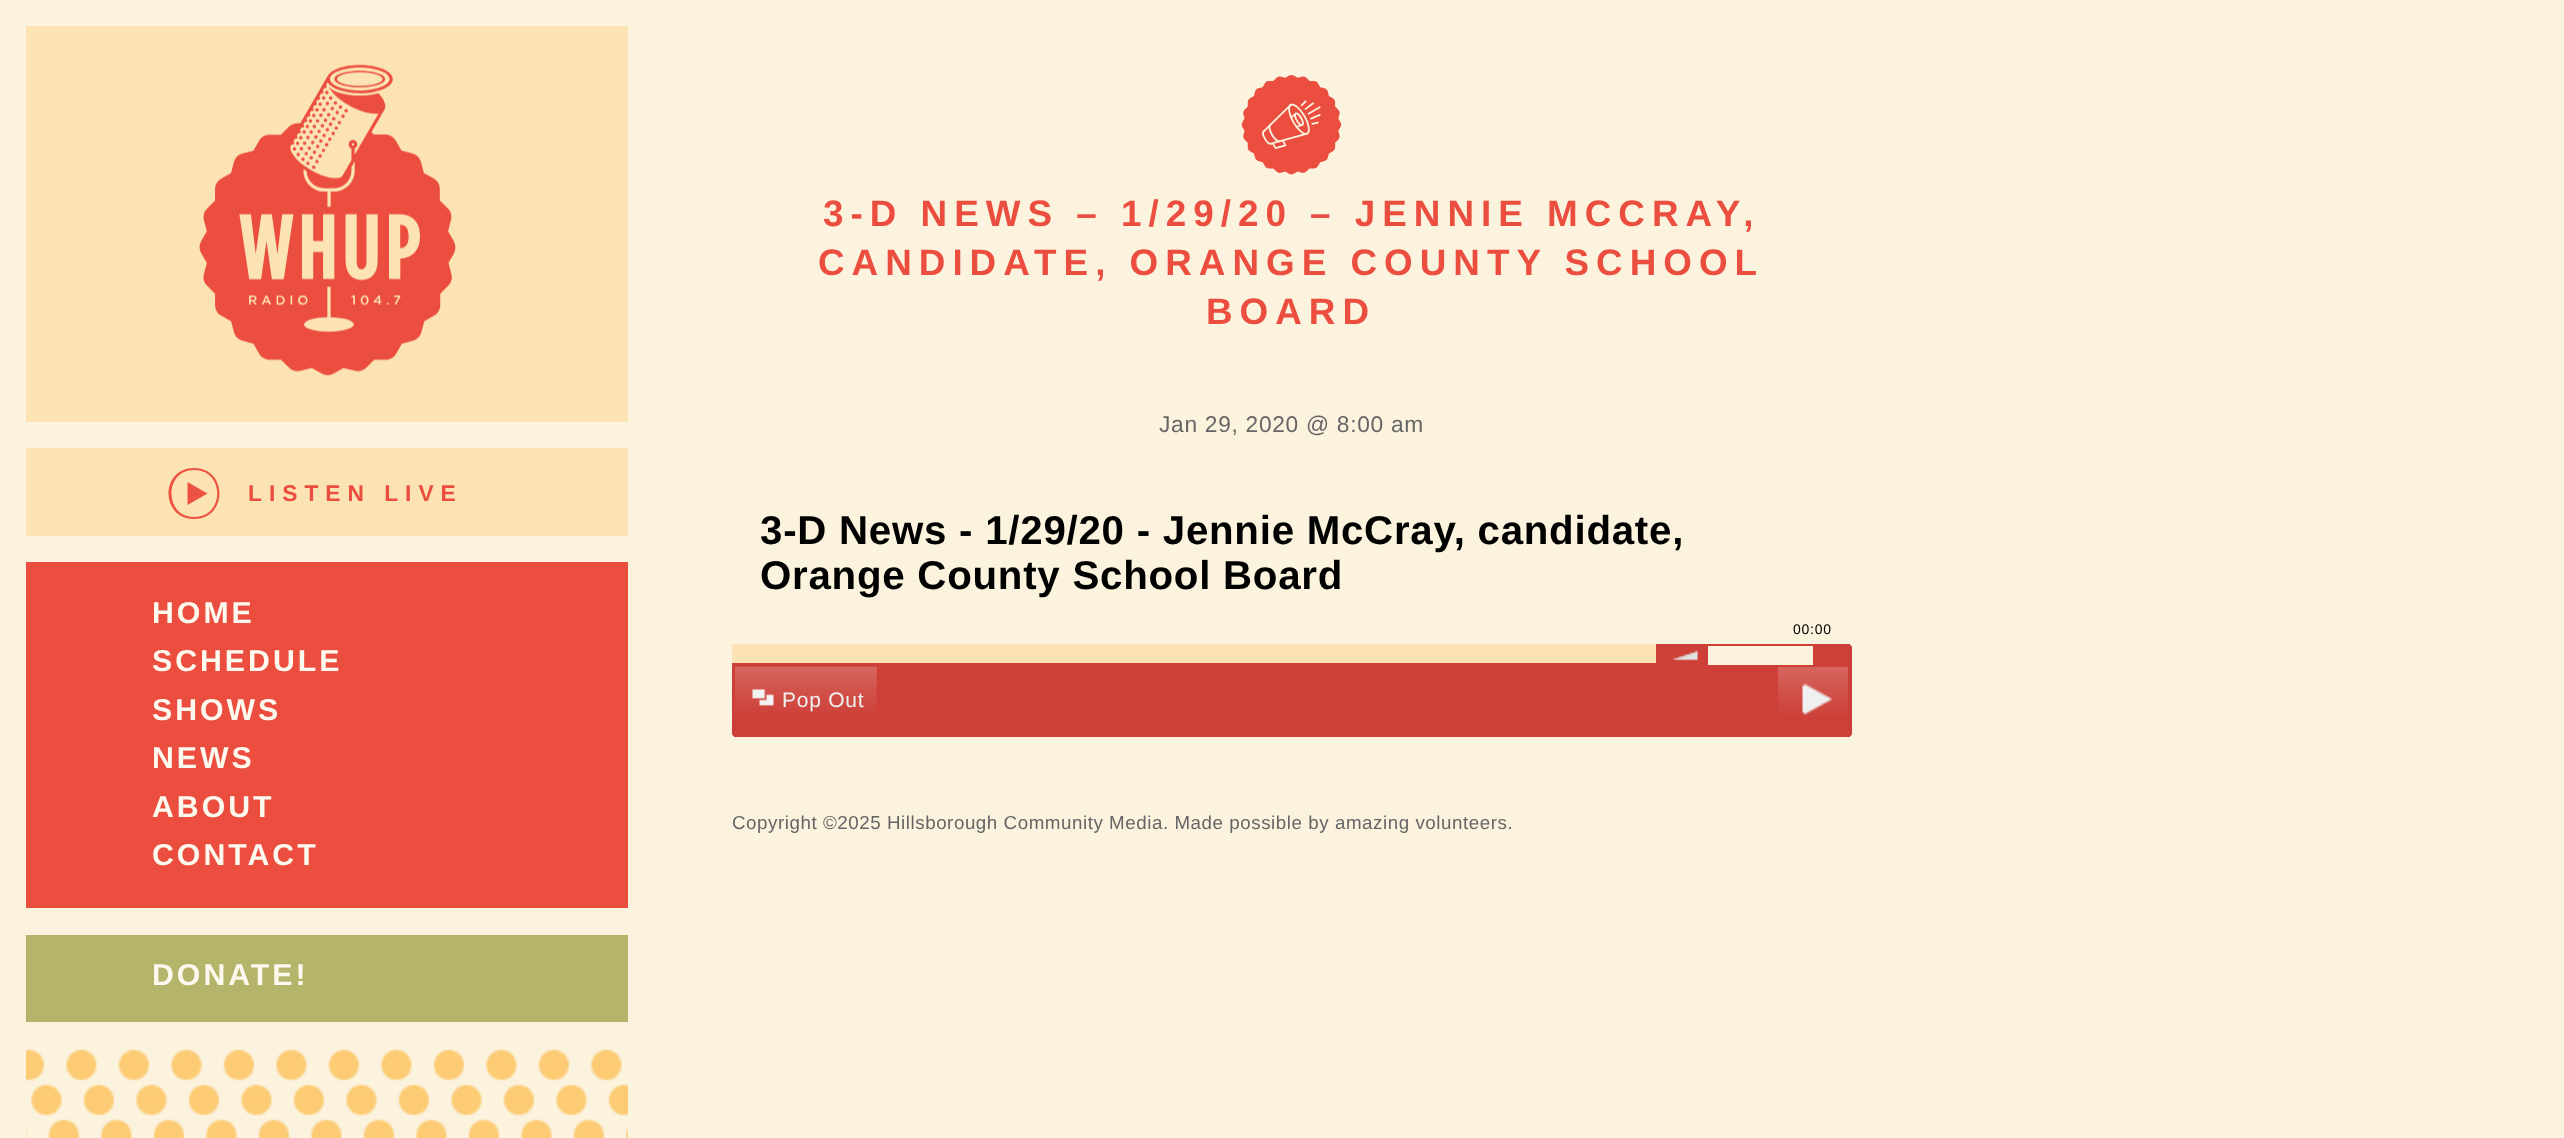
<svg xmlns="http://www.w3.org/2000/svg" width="2564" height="1138">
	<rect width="100%" height="100%" fill="#FBF3DE" />
	<rect x="26" y="26" width="602" height="396" fill="#FBE3B3" />
	<image x="199" y="64" width="257" height="312" href="assets/img1.png" />
	<rect x="26" y="448" width="602" height="88" fill="#FBE3B3" />
	<path d="M194 519C160 519 160 468 194 468C228 468 228 519 194 519ZM194 470C164 470 164 517 194 517C225 517 225 470 194 470Z" fill="#ED5342" />
	<path d="M187.5 482L207.5 493.5L187.5 505Z" fill="#ED5342" />
	<text x="248" y="501" font-family="Liberation Sans" font-size="22.75" font-weight="700" letter-spacing="7" fill="#EB4D3F">LISTEN LIVE</text>
	<rect x="26" y="562" width="602" height="346" fill="#EB4D3F" />
	<g font-family="Liberation Sans" font-size="30.25" font-weight="700" letter-spacing="3" fill="#FDF9EE">
		<text x="152" y="623">HOME</text>
		<text x="152" y="671">SCHEDULE</text>
		<text x="152" y="720">SHOWS</text>
		<text x="152" y="768">NEWS</text>
		<text x="152" y="817">ABOUT</text>
		<text x="152" y="865">CONTACT</text>
	</g>
	<rect x="26" y="935" width="602" height="87" fill="#B4B46A" />
	<text x="152" y="985" font-family="Liberation Sans" font-size="30.25" font-weight="700" letter-spacing="3" fill="#FDF9EE">DONATE!</text>
	<image x="26" y="1049" width="602" height="89" href="assets/img2.png" />
	<image x="1241" y="75" width="101" height="100" href="assets/img3.png" />
	<g font-family="Liberation Sans" font-size="36.85" font-weight="700" letter-spacing="7" fill="#EB4D3F">
		<text x="823" y="226">3-D NEWS – 1/29/20 – JENNIE MCCRAY,</text>
		<text x="818" y="275">CANDIDATE, ORANGE COUNTY SCHOOL</text>
		<text x="1206" y="324">BOARD</text>
	</g>
	<text x="1159" y="432" font-family="Liberation Sans" font-size="22.75" letter-spacing="0.7" fill="#666666">Jan 29, 2020 @ 8:00 am</text>
	<g font-family="Liberation Sans" font-size="40.25" font-weight="700" letter-spacing="0.75" fill="#000000">
		<text x="760" y="544">3-D News - 1/29/20 - Jennie McCray, candidate,</text>
		<text x="760" y="589">Orange County School Board</text>
	</g>
	<text x="1793" y="634" font-family="Liberation Sans" font-size="14" letter-spacing="0.75" fill="#000000">00:00</text>
	<rect x="732" y="644" width="924" height="19" fill="#FBE3B3" />
	<path d="M732 663H1852V733C1852 735 1850 737 1848 737H736C734 737 732 735 732 733Z" fill="#CD3F37" />
	<path d="M732 663V733C732 735 734 737 736 737H1848C1850 737 1852 735 1852 733V663ZM736 667V733H1848V667Z" fill="#CD3F37" fill-rule="evenodd" />
	<image x="735" y="666" width="142" height="47" href="assets/img4.png" />
	<text x="782" y="707" font-family="Liberation Sans" font-size="21" letter-spacing="0.75" fill="#F0F0F0">Pop Out</text>
	<image x="1778" y="667" width="70" height="50" href="assets/img5.png" />
	<path d="M1656 644H1848C1850 644 1852 646 1852 648V667H1656Z" fill="#CD3F37" />
	<rect x="1848" y="644" width="2" height="1" fill="#CD3F37" />
	<rect x="1851" y="646" width="1" height="2" fill="#CD3F37" />
	<image x="1672" y="650" width="26" height="11" href="assets/img6.png" />
	<rect x="1708" y="646" width="105" height="19" fill="#FBF3DD" />
	<text x="732" y="829" font-family="Liberation Sans" font-size="18.75" letter-spacing="0.55" fill="#666666">Copyright ©2025 Hillsborough Community Media. Made possible by amazing volunteers.</text>
</svg>
